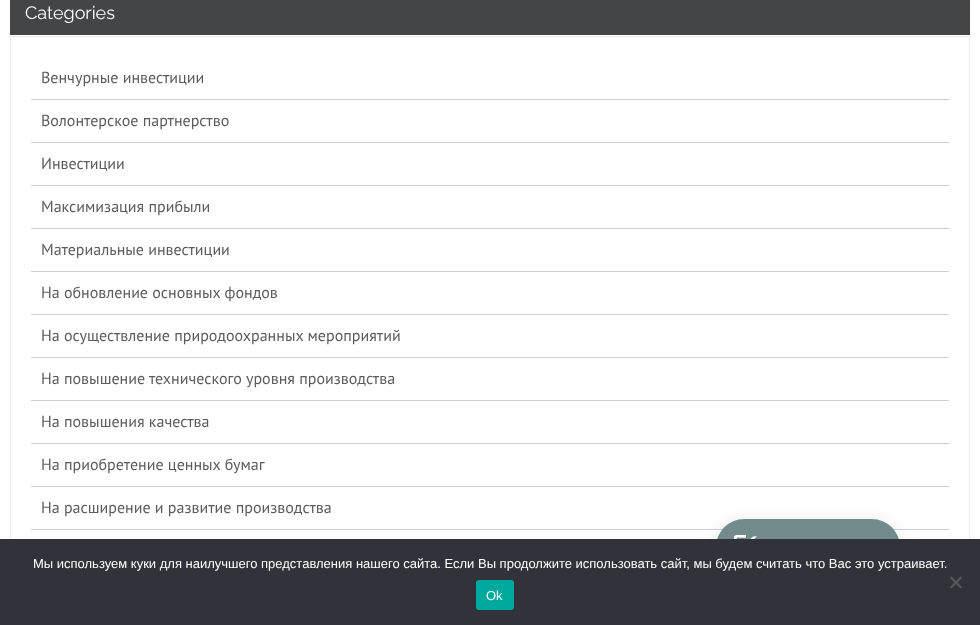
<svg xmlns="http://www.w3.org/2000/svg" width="980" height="625">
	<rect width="100%" height="100%" fill="#FFFFFF" />
	<rect x="10" y="0" width="960" height="35" fill="#434546" />
	<text x="25" y="19" font-family="Raleway" font-size="18" fill="#FFFFFF">Categories</text>
	<rect x="10.5" y="36.5" width="959" height="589" fill="none" stroke="#EDECEC" />
	<rect x="31" y="99" width="918" height="1" fill="#D0CFCF" />
	<text x="41" y="83" font-family="PT Sans" font-size="16" fill="#5C5C5C">Венчурные инвестиции</text>
	<rect x="31" y="142" width="918" height="1" fill="#D0CFCF" />
	<text x="41" y="126" font-family="PT Sans" font-size="16" fill="#5C5C5C">Волонтерское партнерство</text>
	<rect x="31" y="185" width="918" height="1" fill="#D0CFCF" />
	<text x="41" y="169" font-family="PT Sans" font-size="16" fill="#5C5C5C">Инвестиции</text>
	<rect x="31" y="228" width="918" height="1" fill="#D0CFCF" />
	<text x="41" y="212" font-family="PT Sans" font-size="16" fill="#5C5C5C">Максимизация прибыли</text>
	<rect x="31" y="271" width="918" height="1" fill="#D0CFCF" />
	<text x="41" y="255" font-family="PT Sans" font-size="16" fill="#5C5C5C">Материальные инвестиции</text>
	<rect x="31" y="314" width="918" height="1" fill="#D0CFCF" />
	<text x="41" y="298" font-family="PT Sans" font-size="16" fill="#5C5C5C">На обновление основных фондов</text>
	<rect x="31" y="357" width="918" height="1" fill="#D0CFCF" />
	<text x="41" y="341" font-family="PT Sans" font-size="16" fill="#5C5C5C">На осуществление природоохранных мероприятий</text>
	<rect x="31" y="400" width="918" height="1" fill="#D0CFCF" />
	<text x="41" y="384" font-family="PT Sans" font-size="16" fill="#5C5C5C">На повышение технического уровня производства</text>
	<rect x="31" y="443" width="918" height="1" fill="#D0CFCF" />
	<text x="41" y="427" font-family="PT Sans" font-size="16" fill="#5C5C5C">На повышения качества</text>
	<rect x="31" y="486" width="918" height="1" fill="#D0CFCF" />
	<text x="41" y="470" font-family="PT Sans" font-size="16" fill="#5C5C5C">На приобретение ценных бумаг</text>
	<rect x="31" y="529" width="918" height="1" fill="#D0CFCF" />
	<text x="41" y="513" font-family="PT Sans" font-size="16" fill="#5C5C5C">На расширение и развитие производства</text>
	<rect x="716" y="523" width="184" height="56" rx="28" fill="#000000" fill-opacity="0.12" filter="blur(9px)" />
	<rect x="716" y="519" width="184" height="56" rx="28" fill="#728B8B" />
	<image x="734" y="535" width="23" height="4" href="assets/img1.png" />
	<rect x="0" y="539" width="980" height="86" fill="#32323A" />
	<text x="33" y="568" font-family="Liberation Sans" font-size="13" fill="#FFFFFF">Мы используем куки для наилучшего представления нашего сайта. Если Вы продолжите использовать сайт, мы будем считать что Вас это устраивает.</text>
	<path d="M960.5 576.5L962 578L951.5 588.5L950 587Z" fill="#59595D" />
	<path d="M950 578L951.5 576.5L962 587L960.5 588.5Z" fill="#59595D" />
	<rect x="476" y="580" width="38" height="30" rx="3" fill="#00A99D" />
	<text x="486" y="600" font-family="Liberation Sans" font-size="13" fill="#FFFFFF">Ok</text>
</svg>
